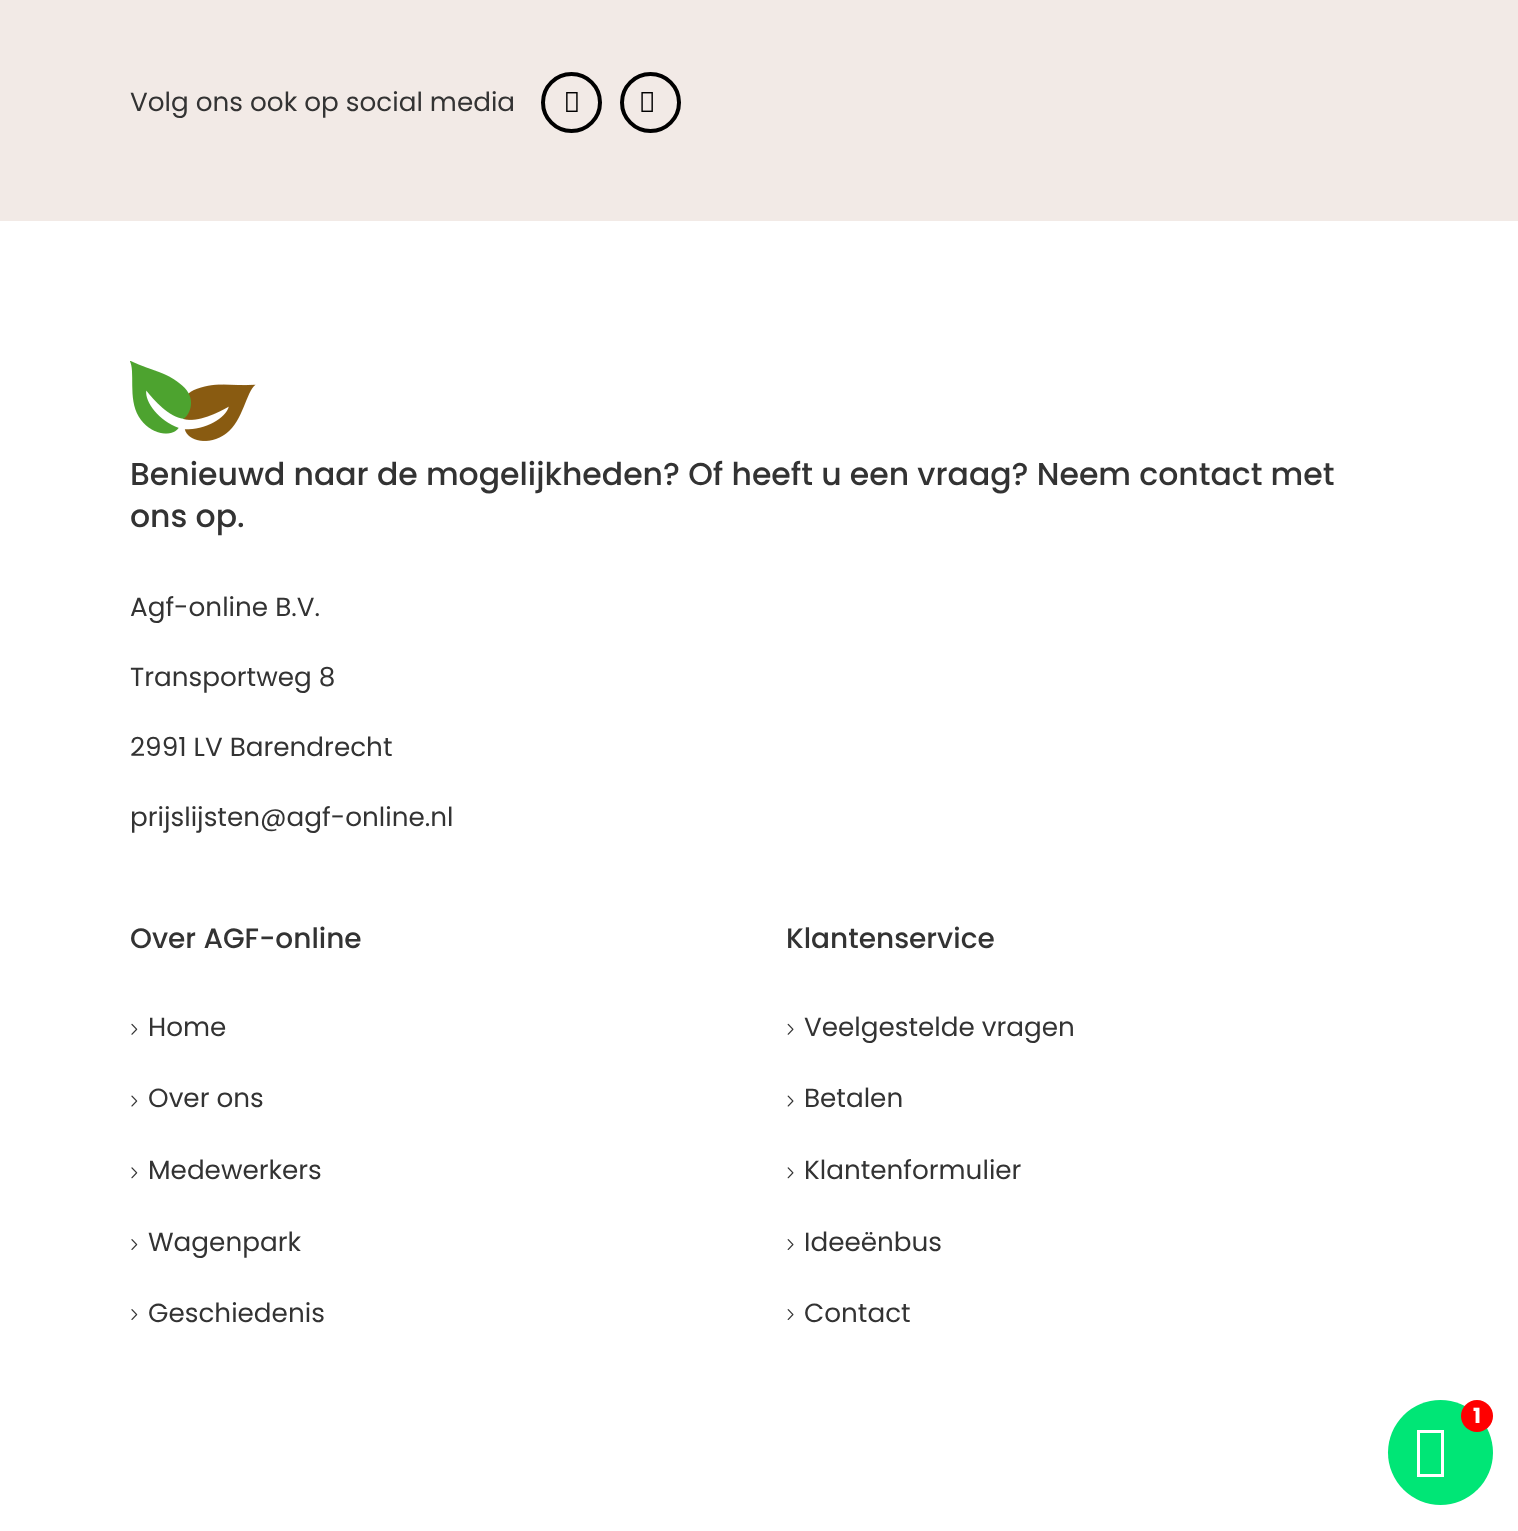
<svg xmlns="http://www.w3.org/2000/svg" width="1518" height="1531">
	<rect width="100%" height="100%" fill="#FFFFFF" />
	<rect x="0" y="0" width="1518" height="221" fill="#F2EAE6" />
	<text x="130" y="111" font-family="Poppins" font-size="26.25" fill="#333333">Volg ons ook op social media</text>
	<circle cx="571.5" cy="102.5" r="28.5" fill="none" stroke="#000000" stroke-width="4" />
	<image x="566" y="92" width="12" height="20" href="assets/img1.png" />
	<circle cx="650.5" cy="102.5" r="28.5" fill="none" stroke="#000000" stroke-width="4" />
	<image x="641" y="92" width="12" height="20" href="assets/img2.png" />
	<circle cx="1440.5" cy="1452.5" r="52.5" fill="#00E676" />
	<circle cx="1477" cy="1416" r="16" fill="#FF0000" />
	<text x="1473" y="1423" font-family="Poppins" font-size="21" font-weight="700" fill="#FFFFFF">1</text>
	<path d="M1417 1477V1430H1444V1477ZM1420 1474H1441V1433H1420Z" fill="#FFFFFF" />
	<image x="130" y="361" width="126" height="80" href="assets/img3.png" />
	<g font-family="Poppins" font-size="31.5" font-weight="500" fill="#333333">
		<text x="130" y="485">Benieuwd naar de mogelijkheden? Of heeft u een vraag? Neem contact met</text>
		<text x="130" y="527">ons op.</text>
	</g>
	<g font-family="Poppins" font-size="26.25" fill="#333333">
		<text x="130" y="616">Agf-online B.V.</text>
		<text x="130" y="686">Transportweg 8</text>
		<text x="130" y="756">2991 LV Barendrecht</text>
		<text x="130" y="826">prijslijsten@agf-online.nl</text>
	</g>
	<text x="130" y="948" font-family="Poppins" font-size="28" font-weight="500" fill="#333333">Over AGF-online</text>
	<image x="131" y="1023" width="7" height="12" href="assets/img4.png" />
	<text x="148" y="1036" font-family="Poppins" font-size="26.25" fill="#333333">Home</text>
	<image x="131" y="1095" width="7" height="12" href="assets/img5.png" />
	<text x="148" y="1107" font-family="Poppins" font-size="26.25" fill="#333333">Over ons</text>
	<image x="131" y="1167" width="7" height="12" href="assets/img6.png" />
	<text x="148" y="1179" font-family="Poppins" font-size="26.25" fill="#333333">Medewerkers</text>
	<image x="131" y="1239" width="7" height="11" href="assets/img7.png" />
	<text x="148" y="1251" font-family="Poppins" font-size="26.25" fill="#333333">Wagenpark</text>
	<image x="131" y="1309" width="7" height="11" href="assets/img7.png" />
	<text x="148" y="1322" font-family="Poppins" font-size="26.25" fill="#333333">Geschiedenis</text>
	<text x="786" y="948" font-family="Poppins" font-size="28" font-weight="500" fill="#333333">Klantenservice</text>
	<image x="787" y="1023" width="7" height="12" href="assets/img8.png" />
	<text x="804" y="1036" font-family="Poppins" font-size="26.25" fill="#333333">Veelgestelde vragen</text>
	<image x="787" y="1095" width="7" height="12" href="assets/img9.png" />
	<text x="804" y="1107" font-family="Poppins" font-size="26.25" fill="#333333">Betalen</text>
	<image x="787" y="1167" width="7" height="12" href="assets/img10.png" />
	<text x="804" y="1179" font-family="Poppins" font-size="26.25" fill="#333333">Klantenformulier</text>
	<image x="787" y="1239" width="7" height="11" href="assets/img11.png" />
	<text x="804" y="1251" font-family="Poppins" font-size="26.25" fill="#333333">Ideeënbus</text>
	<image x="787" y="1309" width="7" height="11" href="assets/img11.png" />
	<text x="804" y="1322" font-family="Poppins" font-size="26.25" fill="#333333">Contact</text>
</svg>
